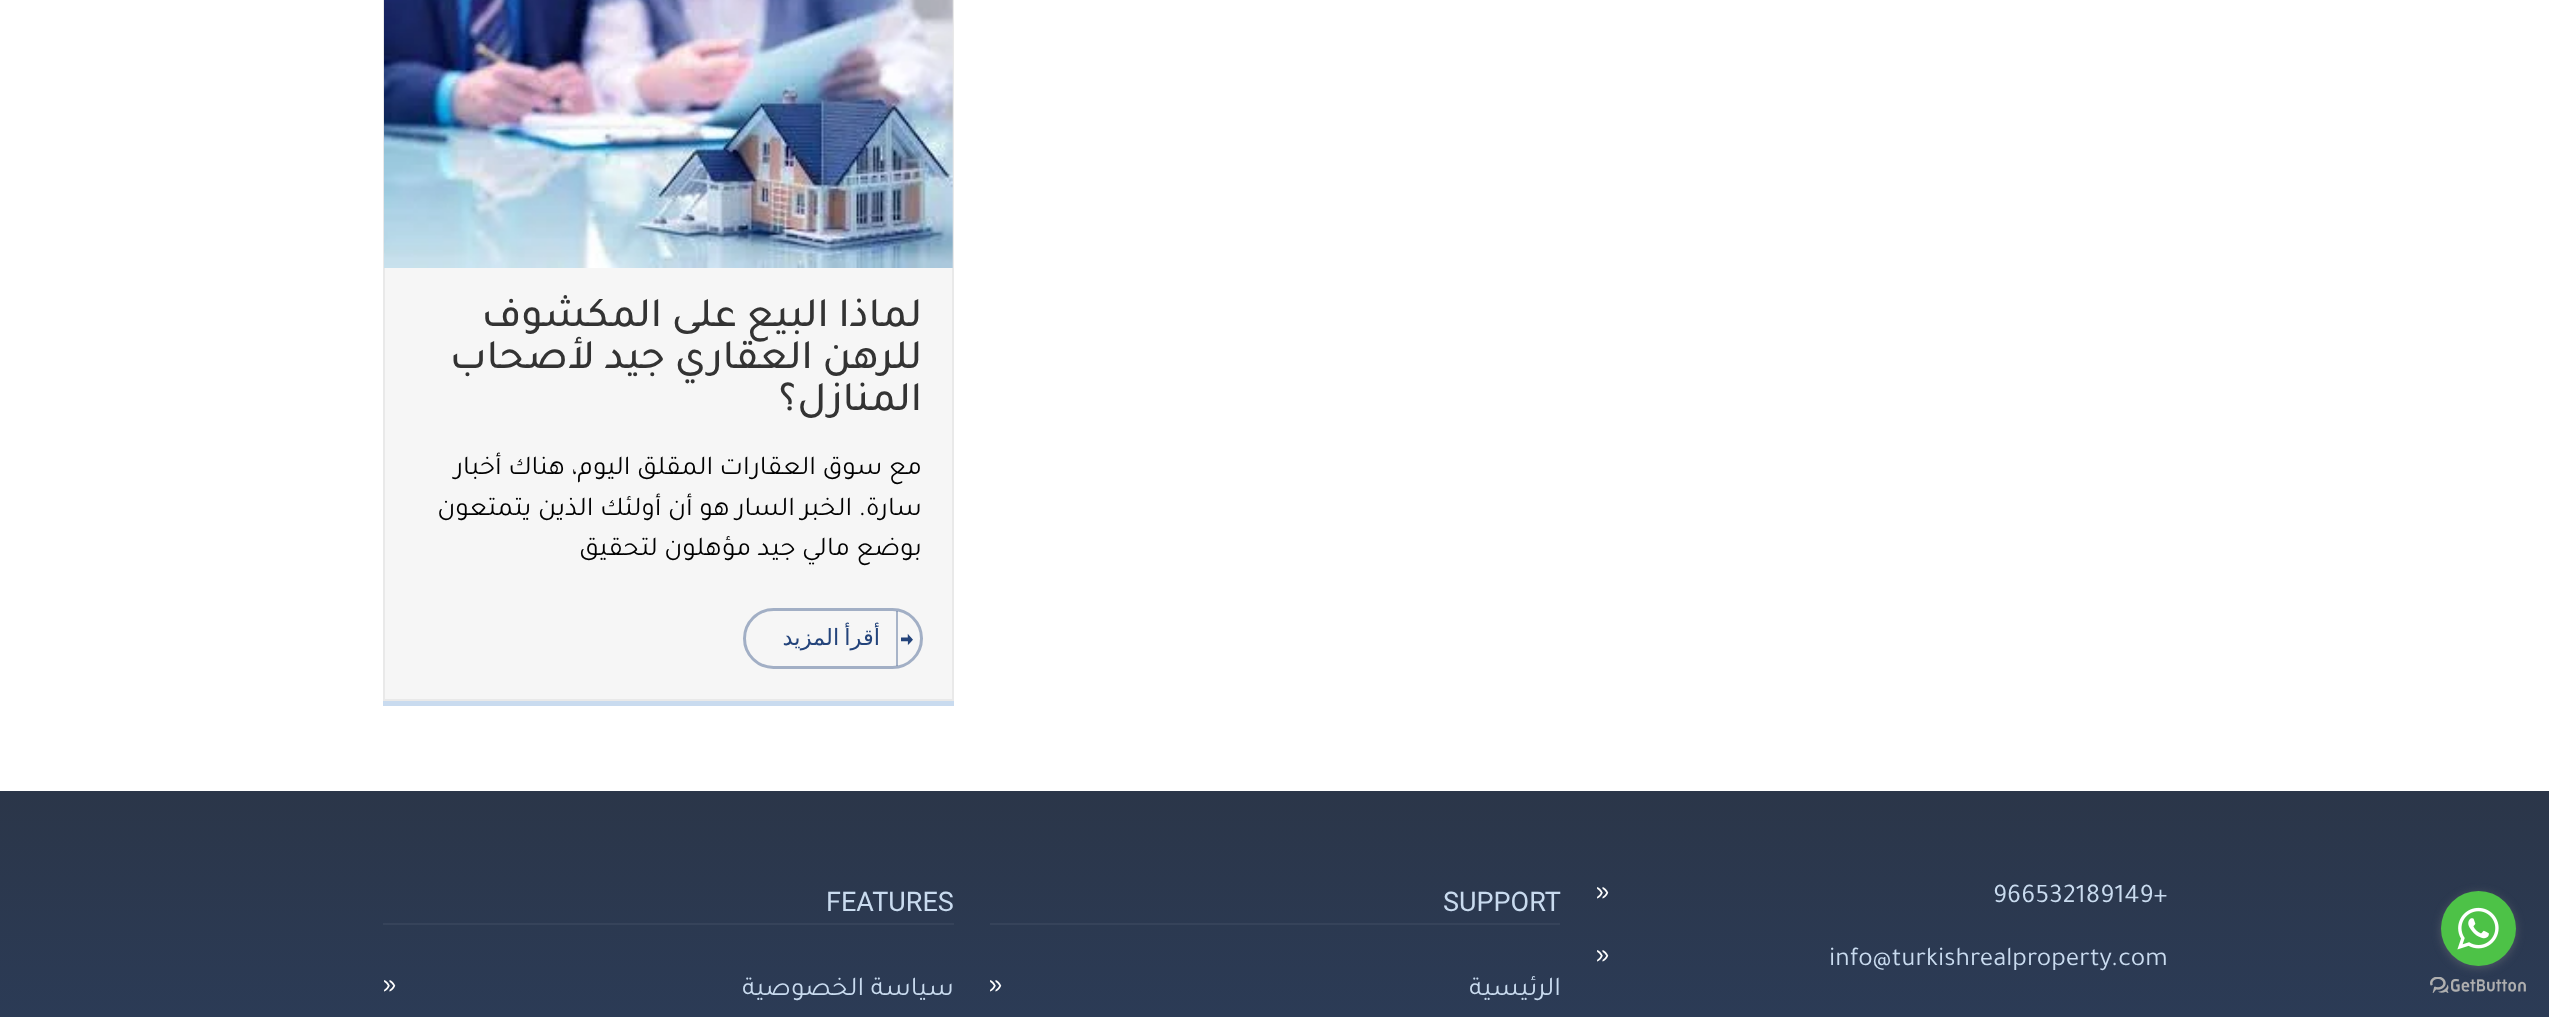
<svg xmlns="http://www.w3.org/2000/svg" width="2549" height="1017">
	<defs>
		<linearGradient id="g1" gradientUnits="userSpaceOnUse" x1="1275" y1="790" x2="1275" y2="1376"><stop offset="0" stop-color="#2B3649" /><stop offset="1" stop-color="#2C436A" /></linearGradient>
	</defs>
	<rect width="100%" height="100%" fill="#FFFFFF" />
	<rect x="0" y="791" width="2549" height="226" fill="url(#g1)" />
	<image x="2430" y="977" width="96" height="16" href="assets/img2.png" />
	<rect x="2441" y="893" width="75" height="75" rx="37.5" fill="#888888" fill-opacity="0.4" filter="blur(5px)" />
	<circle cx="2478.5" cy="928.5" r="37.5" fill="#4DC247" />
	<image x="2457" y="907" width="42" height="43" href="assets/img1.png" />
	<rect x="385" y="268" width="567" height="431" fill="#F6F6F6" />
	<rect x="384" y="-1" width="569" height="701" fill="none" stroke="#E9E9E9" stroke-width="2" />
	<image x="384" y="0" width="569" height="268" href="assets/img3.png" />
	<image x="390" y="0" width="563" height="268" href="assets/img4.png" />
	<g font-family="Tajawal" font-size="42" font-weight="500" direction="rtl" fill="#333333">
		<text x="922" y="326">لماذا البيع على المكشوف</text>
		<text x="922" y="368">للرهن العقاري جيد لأصحاب</text>
		<text x="922" y="410">المنازل؟</text>
	</g>
	<g font-family="Tajawal" font-size="27" direction="rtl" fill="#000000">
		<text x="922" y="474">مع سوق العقارات المقلق اليوم، هناك أخبار</text>
		<text x="922" y="515">سارة. الخبر السار هو أن أولئك الذين يتمتعون</text>
		<text x="922" y="555">بوضع مالي جيد مؤهلون لتحقيق</text>
	</g>
	<rect x="744.5" y="609.5" width="177" height="58" rx="29" fill="none" stroke="#A2AFC5" stroke-width="3" />
	<text x="901" y="645" font-family="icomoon" font-size="12" fill="#24447B">2</text>
	<rect x="896" y="611" width="2" height="55" fill="#24447B" fill-opacity="0.37" />
	<text x="880" y="645" word-spacing="-2" font-family="DejaVu Sans" font-size="22.5" direction="rtl" fill="#24447B">أقرأ المزيد</text>
	<rect x="383" y="701" width="571" height="5" fill="#C9DBEF" />
	<text x="1993" y="902" font-family="Tajawal" font-size="27" fill="#C9DBEF">966532189149+</text>
	<text x="1596" y="899" font-family="Tajawal" font-size="27" fill="#FFFFFF">»</text>
	<text x="1829" y="965" font-family="Tajawal" font-size="27" fill="#C9DBEF">info@turkishrealproperty.com</text>
	<text x="1596" y="962" font-family="Tajawal" font-size="27" fill="#FFFFFF">»</text>
	<text x="1443" y="911" font-family="Roboto" font-size="27" fill="#C9DBEF">SUPPORT</text>
	<rect x="990" y="923" width="570" height="2" fill="#36435A" />
	<text x="1561" y="995" font-family="Tajawal" font-size="27" direction="rtl" fill="#C9DBEF">الرئيسية</text>
	<text x="989" y="992" font-family="Tajawal" font-size="27" fill="#FFFFFF">»</text>
	<text x="826" y="911" font-family="Roboto" font-size="27" fill="#C9DBEF">FEATURES</text>
	<rect x="383" y="923" width="571" height="2" fill="#36435A" />
	<text x="954" y="995" font-family="Tajawal" font-size="27" direction="rtl" fill="#C9DBEF">سياسة الخصوصية</text>
	<text x="383" y="992" font-family="Tajawal" font-size="27" fill="#FFFFFF">»</text>
</svg>
